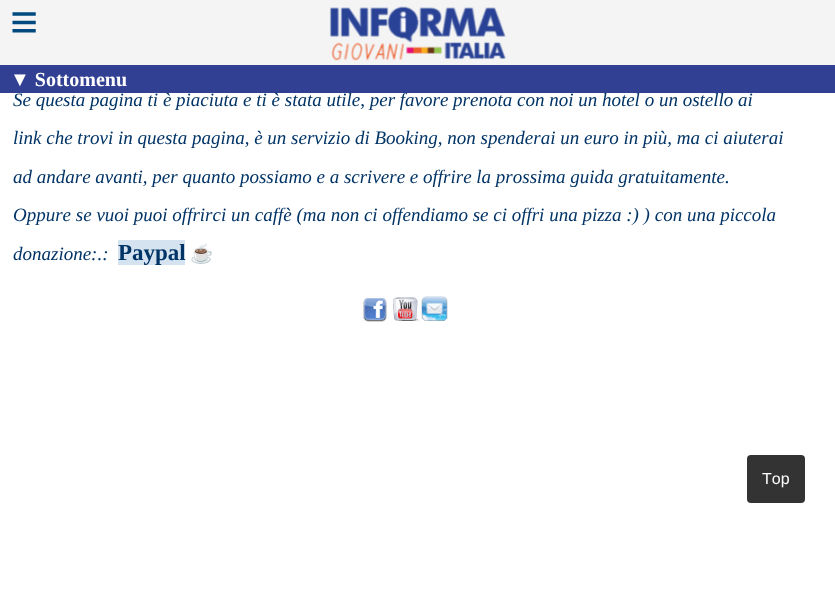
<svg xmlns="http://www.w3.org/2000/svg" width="835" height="608">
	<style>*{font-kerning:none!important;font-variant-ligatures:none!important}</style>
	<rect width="100%" height="100%" fill="#FFFFFF" />
	<rect x="0" y="0" width="835" height="65" fill="#F4F4F4" />
	<image x="329" y="6" width="177" height="55" href="assets/img1.png" />
	<text x="10" y="39" font-family="Liberation Serif" font-size="50" font-weight="700" fill="#004A7F">≡</text>
	<text x="13" y="106" font-family="Liberation Serif" font-size="19" font-style="italic" fill="#003366">Se questa pagina ti è piaciuta e ti è stata utile, per favore prenota con noi un hotel o un ostello ai</text>
	<rect x="0" y="65" width="835" height="28" fill="#314092" />
	<text x="10" y="86" font-family="Liberation Serif" font-size="20" font-weight="700" fill="#FFFFFF">▼ Sottomenu</text>
	<g font-family="Liberation Serif" font-size="19" font-style="italic" fill="#003366">
		<text x="13" y="144">link che trovi in questa pagina, è un servizio di Booking, non spenderai un euro in più, ma ci aiuterai</text>
		<text x="13" y="183">ad andare avanti, per quanto possiamo e a scrivere e offrire la prossima guida gratuitamente.</text>
		<text x="13" y="221">Oppure se vuoi puoi offrirci un caffè (ma non ci offendiamo se ci offri una pizza :) ) con una piccola</text>
		<text x="13" y="260">donazione:.:</text>
	</g>
	<rect x="118" y="240" width="67" height="25" fill="#D5E2EF" />
	<text x="118" y="260" font-family="Liberation Serif" font-size="23" font-weight="700" fill="#003366">Paypal</text>
	<text x="190" y="260" font-family="Noto Color Emoji" font-size="19" fill="#003366">☕</text>
	<image x="363" y="298" width="24" height="24" href="assets/img2.png" />
	<image x="392" y="297" width="28" height="25" href="assets/img3.png" />
	<image x="421" y="296" width="27" height="25" href="assets/img4.png" />
	<rect x="747" y="455" width="58" height="48" rx="4" fill="#333333" />
	<text x="762" y="484" font-family="Liberation Sans" font-size="16" fill="#FFFFFF">Top</text>
</svg>
